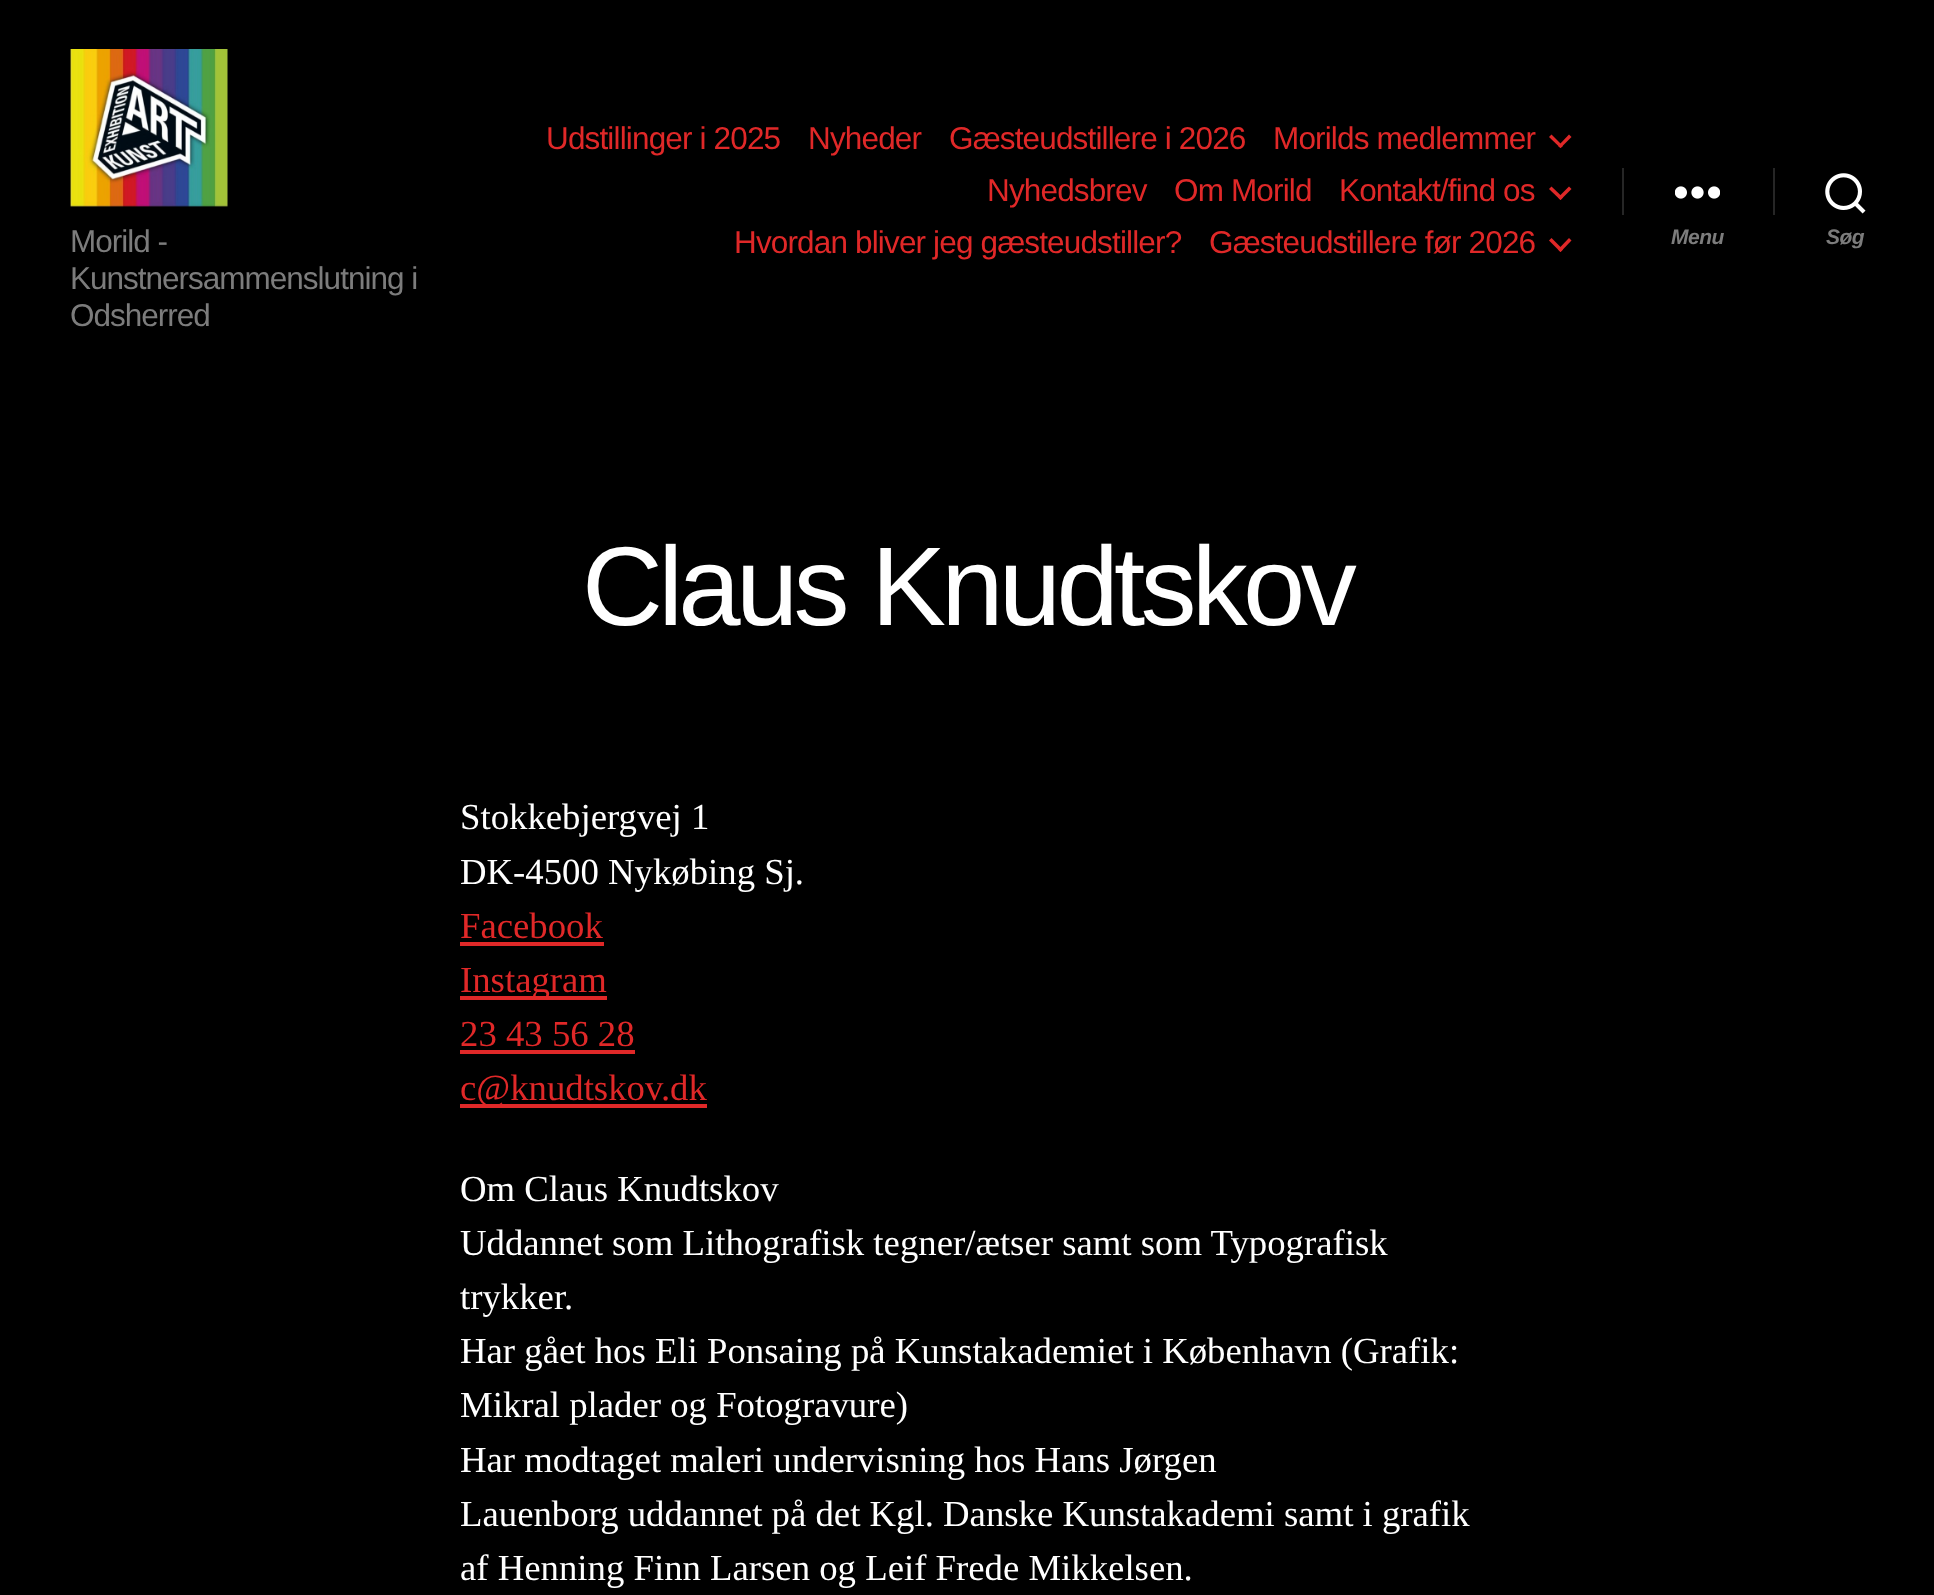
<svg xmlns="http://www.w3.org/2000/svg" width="1934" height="1595">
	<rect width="100%" height="100%" fill="#000000" />
	<g font-family="Liberation Sans" font-size="31.5" letter-spacing="-0.85" fill="#E02828">
		<text x="546" y="149">Udstillinger i 2025</text>
		<text x="808" y="149">Nyheder</text>
		<text x="949" y="149">Gæsteudstillere i 2026</text>
		<text x="1273" y="149">Morilds medlemmer</text>
	</g>
	<path d="M1549 137L1551.5 134.5L1563 146L1560.5 148Z" fill="#E02828" />
	<path d="M1558 146L1569 134.5L1571.5 137L1560.5 148Z" fill="#E02828" />
	<g font-family="Liberation Sans" font-size="31.5" letter-spacing="-0.85" fill="#E02828">
		<text x="987" y="201">Nyhedsbrev</text>
		<text x="1174" y="201">Om Morild</text>
		<text x="1339" y="201">Kontakt/find os</text>
	</g>
	<path d="M1549 189L1551.5 186.5L1563 197.5L1560.5 200Z" fill="#E02828" />
	<path d="M1558 197.5L1569 186.5L1571.5 189L1560.5 200Z" fill="#E02828" />
	<g font-family="Liberation Sans" font-size="31.5" letter-spacing="-0.85" fill="#E02828">
		<text x="734" y="253">Hvordan bliver jeg gæsteudstiller?</text>
		<text x="1209" y="253">Gæsteudstillere før 2026</text>
	</g>
	<path d="M1549 240.5L1551.5 238L1563 249.5L1560.5 252Z" fill="#E02828" />
	<path d="M1558 249.5L1569 238L1571.5 240.5L1560.5 252Z" fill="#E02828" />
	<rect x="1622" y="168" width="2" height="47" fill="#262626" />
	<image x="1675" y="186" width="45" height="13" href="assets/img1.png" />
	<text x="1671" y="244" font-family="Liberation Sans" font-size="21" font-weight="700" font-style="italic" letter-spacing="-0.5" fill="#7C7C7C">Menu</text>
	<rect x="1773" y="168" width="2" height="47" fill="#262626" />
	<image x="1825" y="173" width="41" height="41" href="assets/img2.png" />
	<text x="1826" y="244" font-family="Liberation Sans" font-size="21" font-weight="700" font-style="italic" letter-spacing="-0.5" fill="#7C7C7C">Søg</text>
	<image x="70" y="49" width="158" height="158" href="assets/img3.png" />
	<g font-family="Liberation Sans" font-size="31.5" letter-spacing="-1" fill="#7C7C7C">
		<text x="70" y="252">Morild -</text>
		<text x="70" y="289">Kunstnersammenslutning i</text>
		<text x="70" y="326">Odsherred</text>
	</g>
	<text x="582" y="625" font-family="Liberation Sans" font-size="112" letter-spacing="-4.7" fill="#FFFFFF">Claus Knudtskov</text>
	<g font-family="Liberation Serif" font-size="36.75" fill="#FFFFFF">
		<text x="460" y="829">Stokkebjergvej 1</text>
		<text x="460" y="884">DK-4500 Nykøbing Sj.</text>
	</g>
	<text x="460" y="938" font-family="Liberation Serif" font-size="36.75" fill="#E02828">Facebook</text>
	<rect x="460" y="942" width="144" height="4" fill="#E02828" />
	<rect x="460" y="996" width="147" height="4" fill="#E02828" />
	<g font-family="Liberation Serif" font-size="36.75" fill="#E02828">
		<text x="460" y="992">Instagram</text>
		<text x="460" y="1046">23 43 56 28</text>
	</g>
	<rect x="460" y="1050" width="175" height="4" fill="#E02828" />
	<rect x="460" y="1104" width="247" height="4" fill="#E02828" />
	<text x="460" y="1100" font-family="Liberation Serif" font-size="36.75" fill="#E02828">c@knudtskov.dk</text>
	<g font-family="Liberation Serif" font-size="36.75" fill="#FFFFFF">
		<text x="460" y="1201">Om Claus Knudtskov</text>
		<text x="460" y="1255">Uddannet som Lithografisk tegner/ætser samt som Typografisk</text>
		<text x="460" y="1309">trykker.</text>
		<text x="460" y="1363">Har gået hos Eli Ponsaing på Kunstakademiet i København (Grafik:</text>
		<text x="460" y="1417">Mikral plader og Fotogravure)</text>
		<text x="460" y="1472">Har modtaget maleri undervisning hos Hans Jørgen</text>
		<text x="460" y="1526">Lauenborg uddannet på det Kgl. Danske Kunstakademi samt i grafik</text>
		<text x="460" y="1580">af Henning Finn Larsen og Leif Frede Mikkelsen.</text>
	</g>
</svg>
